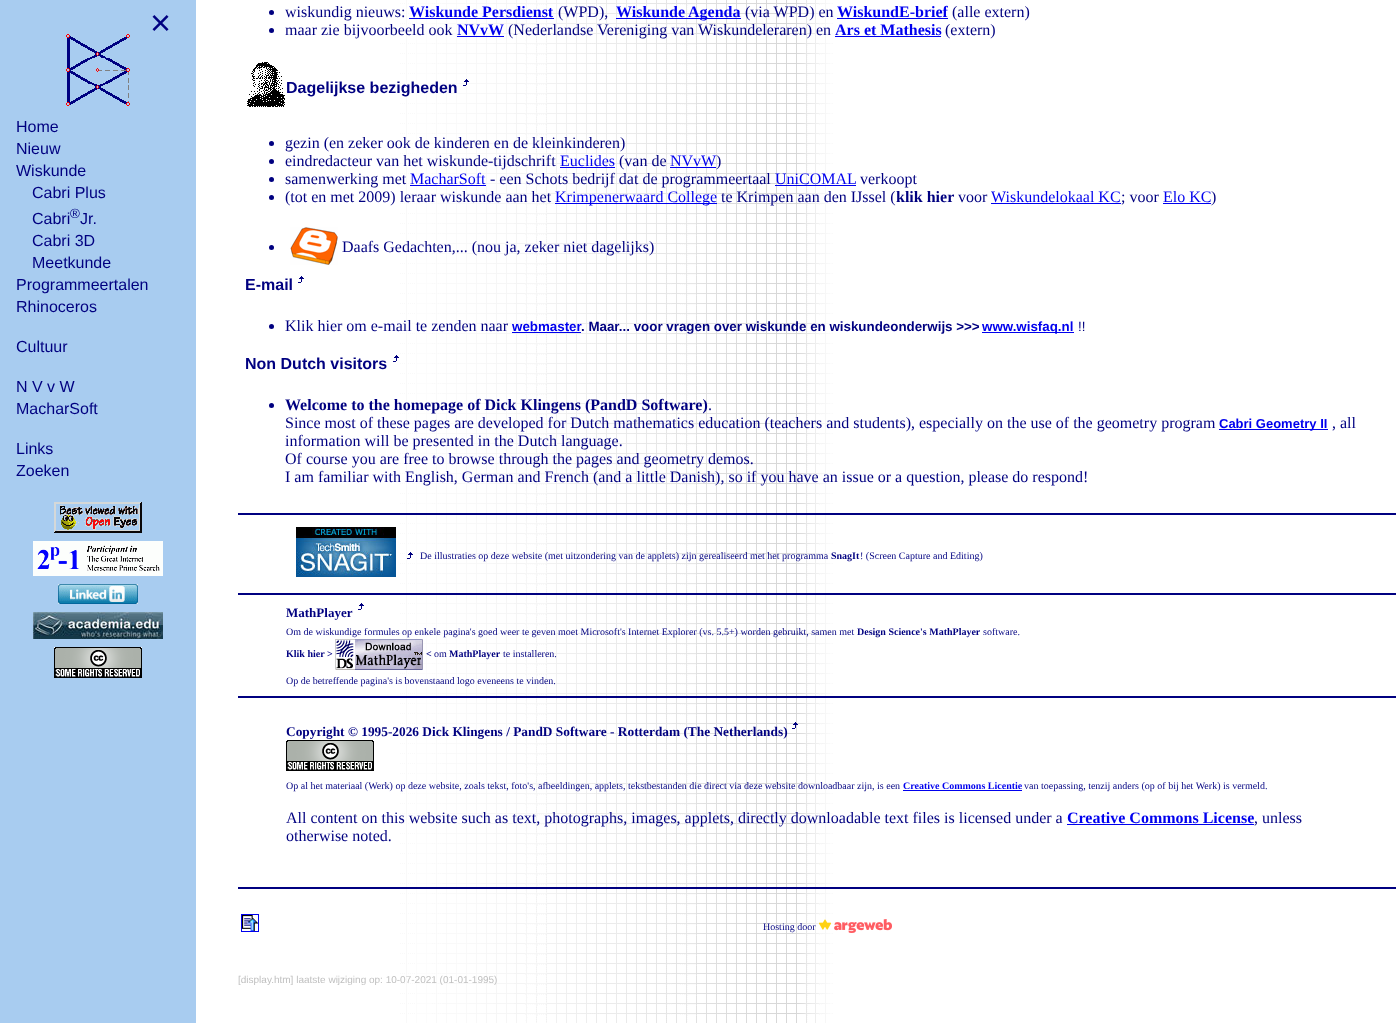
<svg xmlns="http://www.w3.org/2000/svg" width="1396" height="1023">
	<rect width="100%" height="100%" fill="#FFFFFF" />
	<image x="400" y="0" width="433" height="1023" href="assets/img1.png" />
	<rect x="0" y="0" width="196" height="1023" fill="#A8CCF0" />
	<text x="150" y="35" font-family="Liberation Sans" font-size="36" fill="#000080">×</text>
	<image x="66" y="34" width="64" height="72" href="assets/img2.png" />
	<g font-family="Liberation Sans" font-size="16" fill="#000080">
		<text x="16" y="132">Home</text>
		<text x="16" y="154">Nieuw</text>
		<text x="16" y="176">Wiskunde</text>
		<text x="32" y="198">Cabri Plus</text>
		<text x="32" y="224">Cabri</text>
	</g>
	<text x="70" y="218" font-family="Liberation Sans" font-size="13.35" fill="#000080">®</text>
	<g font-family="Liberation Sans" font-size="16" fill="#000080">
		<text x="80" y="224">Jr.</text>
		<text x="32" y="246">Cabri 3D</text>
		<text x="32" y="268">Meetkunde</text>
		<text x="16" y="290">Programmeertalen</text>
		<text x="16" y="312">Rhinoceros</text>
		<text x="16" y="352">Cultuur</text>
		<text x="16" y="392">N V v W</text>
		<text x="16" y="414">MacharSoft</text>
		<text x="16" y="454">Links</text>
		<text x="16" y="476">Zoeken</text>
	</g>
	<image x="54" y="502" width="88" height="31" href="assets/img3.png" />
	<image x="33" y="541" width="130" height="35" href="assets/img4.png" />
	<image x="58" y="584" width="80" height="20" href="assets/img5.png" />
	<image x="33" y="612" width="130" height="27" href="assets/img6.png" />
	<image x="54" y="647" width="88" height="31" href="assets/img7.png" />
	<circle cx="271.5" cy="12.5" r="2.5" fill="#000080" />
	<text x="285" y="17" font-family="Liberation Serif" font-size="16" fill="#000080">wiskundig nieuws:</text>
	<text x="409" y="17" font-family="Liberation Serif" font-size="16" font-weight="700" fill="#0000EE">Wiskunde Persdienst</text>
	<rect x="409" y="18" width="145" height="1" fill="#0000EE" />
	<text x="558" y="17" font-family="Liberation Serif" font-size="16" fill="#000080">(WPD),</text>
	<text x="616" y="17" font-family="Liberation Serif" font-size="16" font-weight="700" fill="#0000EE">Wiskunde</text>
	<rect x="616" y="18" width="125" height="1" fill="#0000EE" />
	<text x="688" y="17" font-family="Liberation Serif" font-size="16" font-weight="700" fill="#0000EE">Agenda</text>
	<text x="745" y="17" font-family="Liberation Serif" font-size="16" fill="#000080">(via WPD) en</text>
	<text x="837" y="17" font-family="Liberation Serif" font-size="16" font-weight="700" fill="#0000EE">WiskundE-brief</text>
	<rect x="837" y="18" width="111" height="1" fill="#0000EE" />
	<text x="952" y="17" font-family="Liberation Serif" font-size="16" fill="#000080">(alle extern)</text>
	<circle cx="271.5" cy="30.5" r="2.5" fill="#000080" />
	<text x="285" y="35" font-family="Liberation Serif" font-size="16" fill="#000080">maar zie bijvoorbeeld ook</text>
	<text x="457" y="35" font-family="Liberation Serif" font-size="16" font-weight="700" fill="#0000EE">NVvW</text>
	<rect x="457" y="36" width="47" height="1" fill="#0000EE" />
	<text x="508" y="35" font-family="Liberation Serif" font-size="16" fill="#000080">(Nederlandse Vereniging van Wiskundeleraren) en</text>
	<text x="835" y="35" font-family="Liberation Serif" font-size="16" font-weight="700" fill="#0000EE">Ars et Mathesis</text>
	<rect x="835" y="36" width="106" height="1" fill="#0000EE" />
	<text x="945" y="35" font-family="Liberation Serif" font-size="16" fill="#000080">(extern)</text>
	<image x="247" y="62" width="38" height="45" href="assets/img8.png" />
	<text x="286" y="93" font-family="Liberation Sans" font-size="16" font-weight="700" fill="#000080">Dagelijkse bezigheden</text>
	<image x="463" y="79" width="6" height="7" href="assets/img9.png" />
	<circle cx="271.5" cy="143.5" r="2.5" fill="#000080" />
	<text x="285" y="148" font-family="Liberation Serif" font-size="16" fill="#000080">gezin (en zeker ook de kinderen en de kleinkinderen)</text>
	<circle cx="271.5" cy="161.5" r="2.5" fill="#000080" />
	<text x="285" y="166" font-family="Liberation Serif" font-size="16" fill="#000080">eindredacteur van het wiskunde-tijdschrift</text>
	<text x="560" y="166" font-family="Liberation Serif" font-size="16" fill="#0000EE">Euclides</text>
	<rect x="560" y="167" width="55" height="1" fill="#0000EE" />
	<text x="619" y="166" font-family="Liberation Serif" font-size="16" fill="#000080">(van de</text>
	<text x="670" y="166" font-family="Liberation Serif" font-size="16" fill="#0000EE">NVvW</text>
	<rect x="670" y="167" width="46" height="1" fill="#0000EE" />
	<text x="716" y="166" font-family="Liberation Serif" font-size="16" fill="#000080">)</text>
	<circle cx="271.5" cy="179.5" r="2.5" fill="#000080" />
	<text x="285" y="184" font-family="Liberation Serif" font-size="16" fill="#000080">samenwerking met</text>
	<text x="410" y="184" font-family="Liberation Serif" font-size="16" fill="#0000EE">MacharSoft</text>
	<rect x="410" y="185" width="76" height="1" fill="#0000EE" />
	<text x="490" y="184" font-family="Liberation Serif" font-size="16" fill="#000080">- een Schots bedrijf dat de programmeertaal</text>
	<text x="775" y="184" font-family="Liberation Serif" font-size="16" fill="#0000EE">UniCOMAL</text>
	<rect x="775" y="185" width="81" height="1" fill="#0000EE" />
	<text x="860" y="184" font-family="Liberation Serif" font-size="16" fill="#000080">verkoopt</text>
	<circle cx="271.5" cy="197.5" r="2.5" fill="#000080" />
	<text x="285" y="202" font-family="Liberation Serif" font-size="16" fill="#000080">(tot en met 2009) leraar wiskunde aan het</text>
	<rect x="555" y="203" width="162" height="1" fill="#0000EE" />
	<text x="555" y="202" font-family="Liberation Serif" font-size="16" fill="#0000EE">Krimpenerwaard College</text>
	<text x="721" y="202" font-family="Liberation Serif" font-size="16" fill="#000080">te Krimpen aan den IJssel (</text>
	<text x="896" y="202" font-family="Liberation Serif" font-size="16" font-weight="700" fill="#000080">klik hier</text>
	<text x="958" y="202" font-family="Liberation Serif" font-size="16" fill="#000080">voor</text>
	<text x="991" y="202" font-family="Liberation Serif" font-size="16" fill="#0000EE">Wiskundelokaal KC</text>
	<rect x="991" y="203" width="130" height="1" fill="#0000EE" />
	<text x="1121" y="202" font-family="Liberation Serif" font-size="16" fill="#000080">; voor</text>
	<text x="1163" y="202" font-family="Liberation Serif" font-size="16" fill="#0000EE">Elo KC</text>
	<rect x="1163" y="203" width="48" height="1" fill="#0000EE" />
	<text x="1211" y="202" font-family="Liberation Serif" font-size="16" fill="#000080">)</text>
	<circle cx="271.5" cy="247.5" r="2.5" fill="#000080" />
	<image x="290" y="227" width="48" height="38" href="assets/img10.png" />
	<text x="342" y="252" font-family="Liberation Serif" font-size="16" fill="#000080">Daafs Gedachten,... (nou ja, zeker niet dagelijks)</text>
	<text x="245" y="290" font-family="Liberation Sans" font-size="16" font-weight="700" fill="#000080">E-mail</text>
	<image x="298" y="276" width="6" height="7" href="assets/img11.png" />
	<circle cx="271.5" cy="326.5" r="2.5" fill="#000080" />
	<text x="285" y="331" font-family="Liberation Serif" font-size="16" fill="#000080">Klik hier om e-mail te zenden naar</text>
	<text x="512" y="331" font-family="Liberation Sans" font-size="13.35" font-weight="700" fill="#0000EE">webmaster</text>
	<text x="581" y="331" font-family="Liberation Sans" font-size="13.35" font-weight="700" fill="#000080">. Maar... voor vragen over wiskunde en wiskundeonderwijs &gt;&gt;&gt;</text>
	<rect x="512" y="332" width="69" height="1" fill="#0000EE" />
	<rect x="982" y="332" width="92" height="1" fill="#0000EE" />
	<text x="982" y="331" font-family="Liberation Sans" font-size="13.35" font-weight="700" fill="#0000EE">www.wisfaq.nl</text>
	<text x="1078" y="331" font-family="Liberation Sans" font-size="13.35" fill="#000080">!!</text>
	<text x="245" y="369" font-family="Liberation Sans" font-size="16" font-weight="700" fill="#000080">Non Dutch visitors</text>
	<image x="393" y="355" width="6" height="7" href="assets/img11.png" />
	<circle cx="271.5" cy="405.5" r="2.5" fill="#000080" />
	<text x="285" y="410" font-family="Liberation Serif" font-size="16" font-weight="700" fill="#000080">Welcome to the homepage of Dick Klingens (PandD Software)</text>
	<g font-family="Liberation Serif" font-size="16" fill="#000080">
		<text x="708" y="410">.</text>
		<text x="285" y="428">Since most of these pages are developed for Dutch mathematics education (teachers and students), especially on the use of the geometry program</text>
	</g>
	<rect x="1219" y="429" width="109" height="1" fill="#0000EE" />
	<text x="1219" y="428" font-family="Liberation Sans" font-size="13" font-weight="700" fill="#0000EE">Cabri Geometry II</text>
	<g font-family="Liberation Serif" font-size="16" fill="#000080">
		<text x="1332" y="428">, all</text>
		<text x="285" y="446">information will be presented in the Dutch language.</text>
		<text x="285" y="464">Of course you are free to browse through the pages and geometry demos.</text>
		<text x="285" y="482">I am familiar with English, German and French (and a little Danish), so if you have an issue or a question, please do respond!</text>
	</g>
	<rect x="238" y="513" width="1158" height="2" fill="#000080" />
	<image x="296" y="527" width="100" height="50" href="assets/img12.png" />
	<image x="407" y="552" width="6" height="7" href="assets/img13.png" />
	<text x="420" y="559" font-family="Liberation Serif" font-size="10" fill="#000080">De illustraties op deze website (met uitzondering van de applets) zijn gerealiseerd met het programma</text>
	<text x="831" y="559" font-family="Liberation Serif" font-size="10" font-weight="700" fill="#000080">SnagIt</text>
	<text x="860" y="559" font-family="Liberation Serif" font-size="10" fill="#000080">! (Screen Capture and Editing)</text>
	<rect x="238" y="593" width="1158" height="2" fill="#000080" />
	<image x="358" y="603" width="6" height="7" href="assets/img11.png" />
	<text x="286" y="617" font-family="Liberation Serif" font-size="13" font-weight="700" fill="#000080">MathPlayer</text>
	<text x="286" y="635" font-family="Liberation Serif" font-size="10" fill="#000080">Om de wiskundige formules op enkele pagina's goed weer te geven moet Microsoft's Internet Explorer (vs. 5.5+) worden gebruikt, samen met</text>
	<text x="857" y="635" font-family="Liberation Serif" font-size="10" font-weight="700" fill="#000080">Design Science's MathPlayer</text>
	<text x="983" y="635" font-family="Liberation Serif" font-size="10" fill="#000080">software.</text>
	<text x="286" y="657" font-family="Liberation Serif" font-size="10" font-weight="700" fill="#000080">Klik hier &gt;</text>
	<image x="335" y="639" width="88" height="31" href="assets/img14.png" />
	<text x="426" y="657" font-family="Liberation Serif" font-size="10" font-weight="700" fill="#000080">&lt;</text>
	<text x="434" y="657" font-family="Liberation Serif" font-size="10" fill="#000080">om</text>
	<text x="449" y="657" font-family="Liberation Serif" font-size="10" font-weight="700" fill="#000080">MathPlayer</text>
	<g font-family="Liberation Serif" font-size="10" fill="#000080">
		<text x="503" y="657">te installeren.</text>
		<text x="286" y="684">Op de betreffende pagina's is bovenstaand logo eveneens te vinden.</text>
	</g>
	<rect x="238" y="696" width="1158" height="2" fill="#000080" />
	<text x="286" y="736" font-family="Liberation Serif" font-size="13.35" font-weight="700" fill="#000080">Copyright © 1995-2026 Dick Klingens / PandD Software - Rotterdam (The Netherlands)</text>
	<image x="792" y="722" width="6" height="7" href="assets/img15.png" />
	<image x="286" y="740" width="88" height="31" href="assets/img7.png" />
	<text x="286" y="789" font-family="Liberation Serif" font-size="10" fill="#000080">Op al het materiaal (Werk) op deze website, zoals tekst, foto's, afbeeldingen, applets, tekstbestanden die direct via deze website downloadbaar zijn, is een</text>
	<text x="903" y="789" font-family="Liberation Serif" font-size="10" font-weight="700" fill="#0000EE">Creative Commons Licentie</text>
	<rect x="903" y="790" width="119" height="1" fill="#0000EE" />
	<text x="1024" y="789" font-family="Liberation Serif" font-size="10" fill="#000080">van toepassing, tenzij anders (op of bij het Werk) is vermeld.</text>
	<text x="286" y="823" font-family="Liberation Serif" font-size="16" fill="#000080">All content on this website such as text, photographs, images, applets, directly downloadable text files is licensed under a</text>
	<text x="1067" y="823" font-family="Liberation Serif" font-size="16" font-weight="700" fill="#0000EE">Creative Commons License</text>
	<rect x="1067" y="824" width="187" height="1" fill="#0000EE" />
	<g font-family="Liberation Serif" font-size="16" fill="#000080">
		<text x="1254" y="823">, unless</text>
		<text x="286" y="841">otherwise noted.</text>
	</g>
	<rect x="238" y="887" width="1158" height="2" fill="#000080" />
	<rect x="241.5" y="914.5" width="17" height="17" fill="none" stroke="#0000EE" />
	<image x="242" y="915" width="16" height="16" href="assets/img16.png" />
	<text x="763" y="930" font-family="Liberation Serif" font-size="10" fill="#000080">Hosting door</text>
	<image x="819" y="919" width="73" height="14" href="assets/img17.png" />
	<text x="238" y="983" font-family="Liberation Sans" font-size="10" fill="#C0C0C0">[display.htm] laatste wijziging op: 10-07-2021 (01-01-1995)</text>
</svg>
